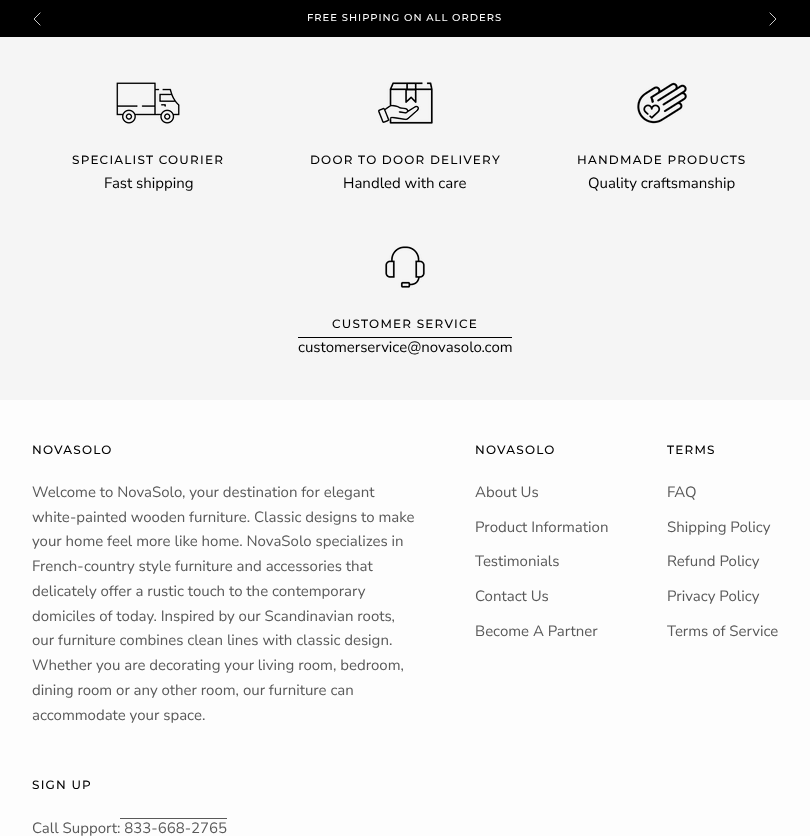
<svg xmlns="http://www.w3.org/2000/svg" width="810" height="836">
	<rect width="100%" height="100%" fill="#F5F5F5" />
	<rect x="0" y="0" width="810" height="37" fill="#000000" />
	<path d="M40 13L34 19L40 25" fill="none" stroke="#FFFFFF" stroke-width="0.8" stroke-linecap="square" />
	<text x="307" y="21" font-family="Montserrat" font-size="10" font-weight="500" letter-spacing="1" fill="#FFFFFF">FREE SHIPPING ON ALL ORDERS</text>
	<path d="M770 25L776 19L770 13" fill="none" stroke="#FFFFFF" stroke-width="0.8" stroke-linecap="square" />
	<image x="116" y="82" width="64" height="42" href="assets/img1.png" />
	<text x="72" y="164" font-family="Montserrat" font-size="12" font-weight="500" letter-spacing="1.2" fill="#000000">SPECIALIST COURIER</text>
	<text x="104" y="188" font-family="Nunito Sans" font-size="15" fill="#000000">Fast shipping</text>
	<image x="378" y="82" width="55" height="42" href="assets/img2.png" />
	<text x="310" y="164" font-family="Montserrat" font-size="12" font-weight="500" letter-spacing="1.2" fill="#000000">DOOR TO DOOR DELIVERY</text>
	<text x="343" y="188" font-family="Nunito Sans" font-size="15" fill="#000000">Handled with care</text>
	<image x="637" y="82" width="50" height="42" href="assets/img3.png" />
	<text x="577" y="164" font-family="Montserrat" font-size="12" font-weight="500" letter-spacing="1.2" fill="#000000">HANDMADE PRODUCTS</text>
	<text x="588" y="188" font-family="Nunito Sans" font-size="15" fill="#000000">Quality craftsmanship</text>
	<image x="385" y="246" width="40" height="42" href="assets/img4.png" />
	<text x="332" y="328" font-family="Montserrat" font-size="12" font-weight="500" letter-spacing="1.2" fill="#000000">CUSTOMER SERVICE</text>
	<text x="298" y="352" font-family="Nunito Sans" font-size="15" fill="#000000">customerservice@novasolo.com</text>
	<rect x="298" y="337" width="214" height="1" fill="#000000" />
	<rect x="0" y="400" width="810" height="436" fill="#FDFDFD" />
	<text x="32" y="454" font-family="Montserrat" font-size="12" font-weight="500" letter-spacing="1.2" fill="#000000">NOVASOLO</text>
	<g font-family="Nunito Sans" font-size="15" fill="#595959">
		<text x="32" y="497">Welcome to NovaSolo, your destination for elegant</text>
		<text x="32" y="522">white-painted wooden furniture. Classic designs to make</text>
		<text x="32" y="546">your home feel more like home. NovaSolo specializes in</text>
		<text x="32" y="571">French-country style furniture and accessories that</text>
		<text x="32" y="596">delicately offer a rustic touch to the contemporary</text>
		<text x="32" y="621">domiciles of today. Inspired by our Scandinavian roots,</text>
		<text x="32" y="645">our furniture combines clean lines with classic design.</text>
		<text x="32" y="670">Whether you are decorating your living room, bedroom,</text>
		<text x="32" y="695">dining room or any other room, our furniture can</text>
		<text x="32" y="720">accommodate your space.</text>
	</g>
	<text x="475" y="454" font-family="Montserrat" font-size="12" font-weight="500" letter-spacing="1.2" fill="#000000">NOVASOLO</text>
	<g font-family="Nunito Sans" font-size="15" fill="#595959">
		<text x="475" y="497">About Us</text>
		<text x="475" y="532">Product Information</text>
		<text x="475" y="566">Testimonials</text>
		<text x="475" y="601">Contact Us</text>
		<text x="475" y="636">Become A Partner</text>
	</g>
	<text x="667" y="454" font-family="Montserrat" font-size="12" font-weight="500" letter-spacing="1.2" fill="#000000">TERMS</text>
	<g font-family="Nunito Sans" font-size="15" fill="#595959">
		<text x="667" y="497">FAQ</text>
		<text x="667" y="532">Shipping Policy</text>
		<text x="667" y="566">Refund Policy</text>
		<text x="667" y="601">Privacy Policy</text>
		<text x="667" y="636">Terms of Service</text>
	</g>
	<text x="32" y="789" font-family="Montserrat" font-size="12" font-weight="500" letter-spacing="1.2" fill="#000000">SIGN UP</text>
	<rect x="120" y="818" width="107" height="1" fill="#595959" />
	<text x="32" y="833" font-family="Nunito Sans" font-size="15" fill="#595959">Call Support: 833-668-2765</text>
</svg>
